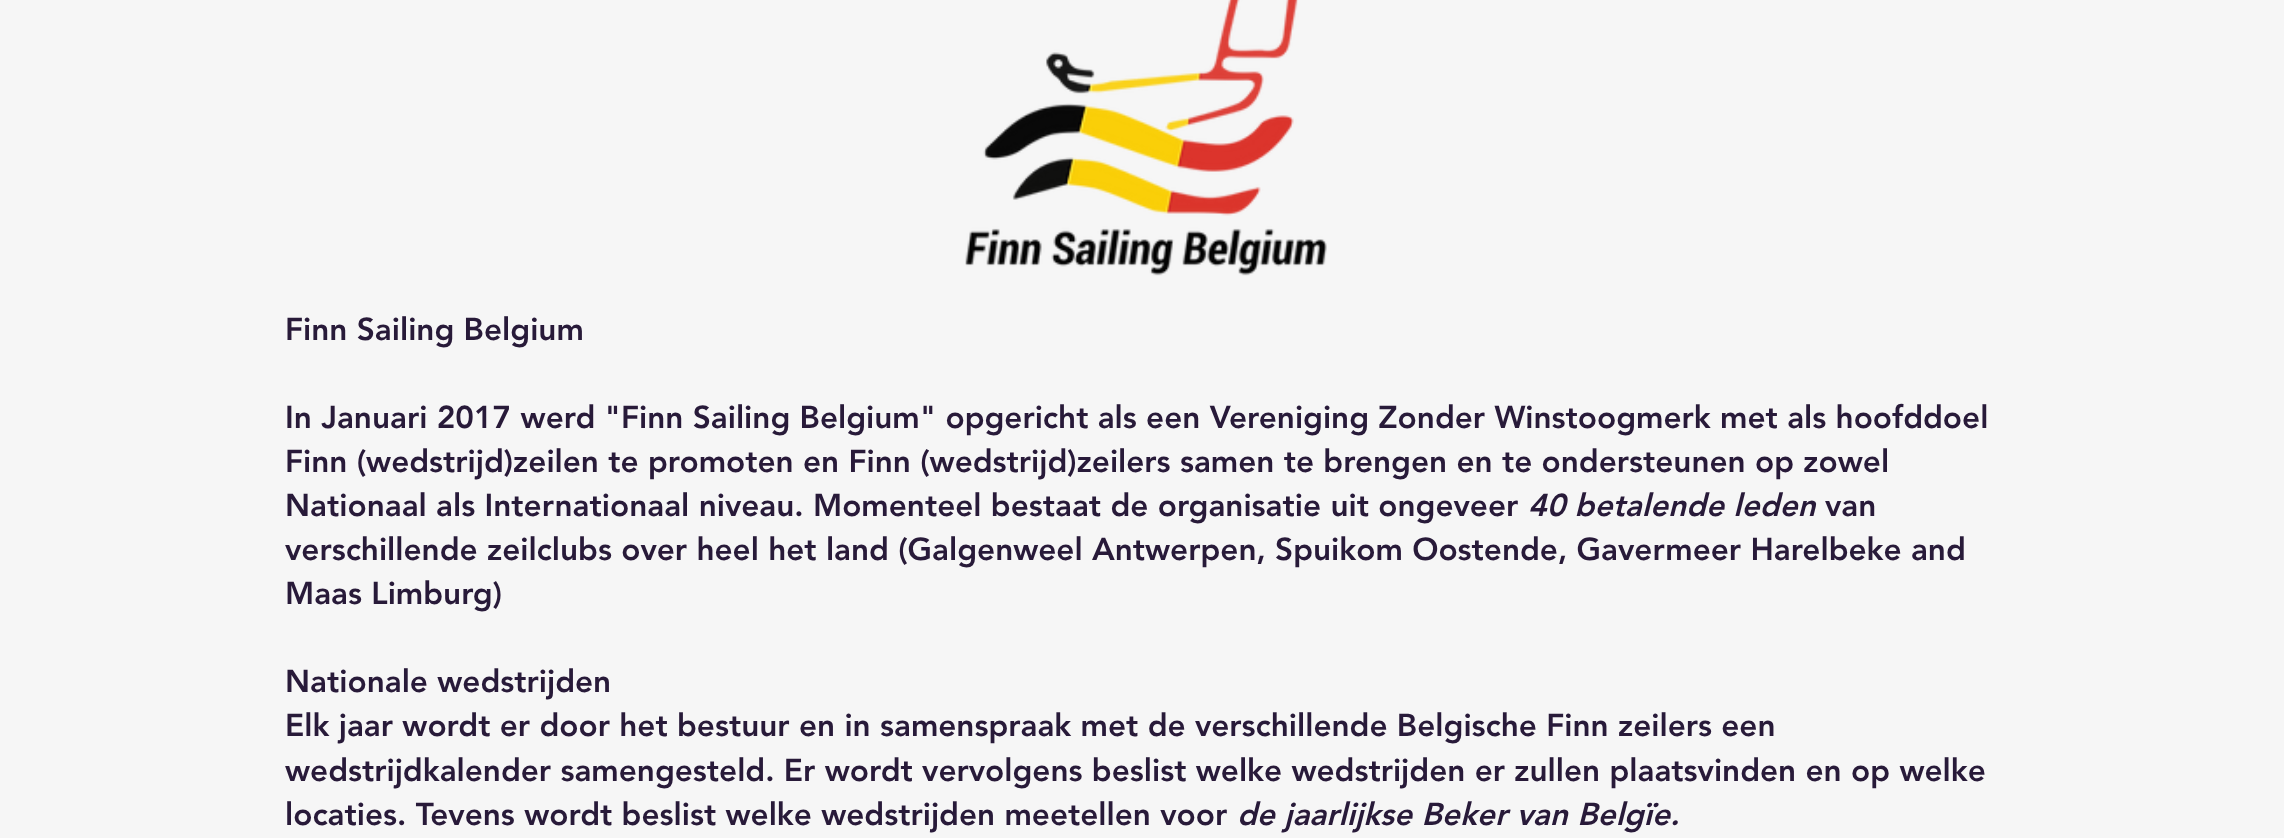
<svg xmlns="http://www.w3.org/2000/svg" width="2284" height="838">
	<rect width="100%" height="100%" fill="#F6F6F6" />
	<image x="965" y="0" width="362" height="276" href="assets/img1.png" />
	<g font-family="'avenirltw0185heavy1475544'" font-size="31.5" font-weight="900" fill="#281A39">
		<text x="285" y="340">Finn Sailing Belgium</text>
		<text x="285" y="428">In Januari 2017 werd "Finn Sailing Belgium" opgericht als een Vereniging Zonder Winstoogmerk met als hoofddoel</text>
		<text x="285" y="472">Finn (wedstrijd)zeilen te promoten en Finn (wedstrijd)zeilers samen te brengen en te ondersteunen op zowel</text>
		<text x="285" y="516">Nationaal als Internationaal niveau. Momenteel bestaat de organisatie uit ongeveer</text>
	</g>
	<text x="1528" y="516" font-family="'avenirltw0185heavy1475544'" font-size="31.5" font-weight="900" font-style="italic" fill="#281A39">40 betalende leden</text>
	<g font-family="'avenirltw0185heavy1475544'" font-size="31.5" font-weight="900" fill="#281A39">
		<text x="1825" y="516">van</text>
		<text x="285" y="560">verschillende zeilclubs over heel het land (Galgenweel Antwerpen, Spuikom Oostende, Gavermeer Harelbeke and</text>
		<text x="285" y="604">Maas Limburg)</text>
		<text x="285" y="692">Nationale wedstrijden</text>
		<text x="285" y="736">Elk jaar wordt er door het bestuur en in samenspraak met de verschillende Belgische Finn zeilers een</text>
		<text x="285" y="781">wedstrijdkalender samengesteld. Er wordt vervolgens beslist welke wedstrijden er zullen plaatsvinden en op welke</text>
		<text x="285" y="825">locaties. Tevens wordt beslist welke wedstrijden meetellen voor</text>
	</g>
	<text x="1237" y="825" font-family="'avenirltw0185heavy1475544'" font-size="31.5" font-weight="900" font-style="italic" fill="#281A39">de jaarlijkse Beker van Belgïe.</text>
</svg>
